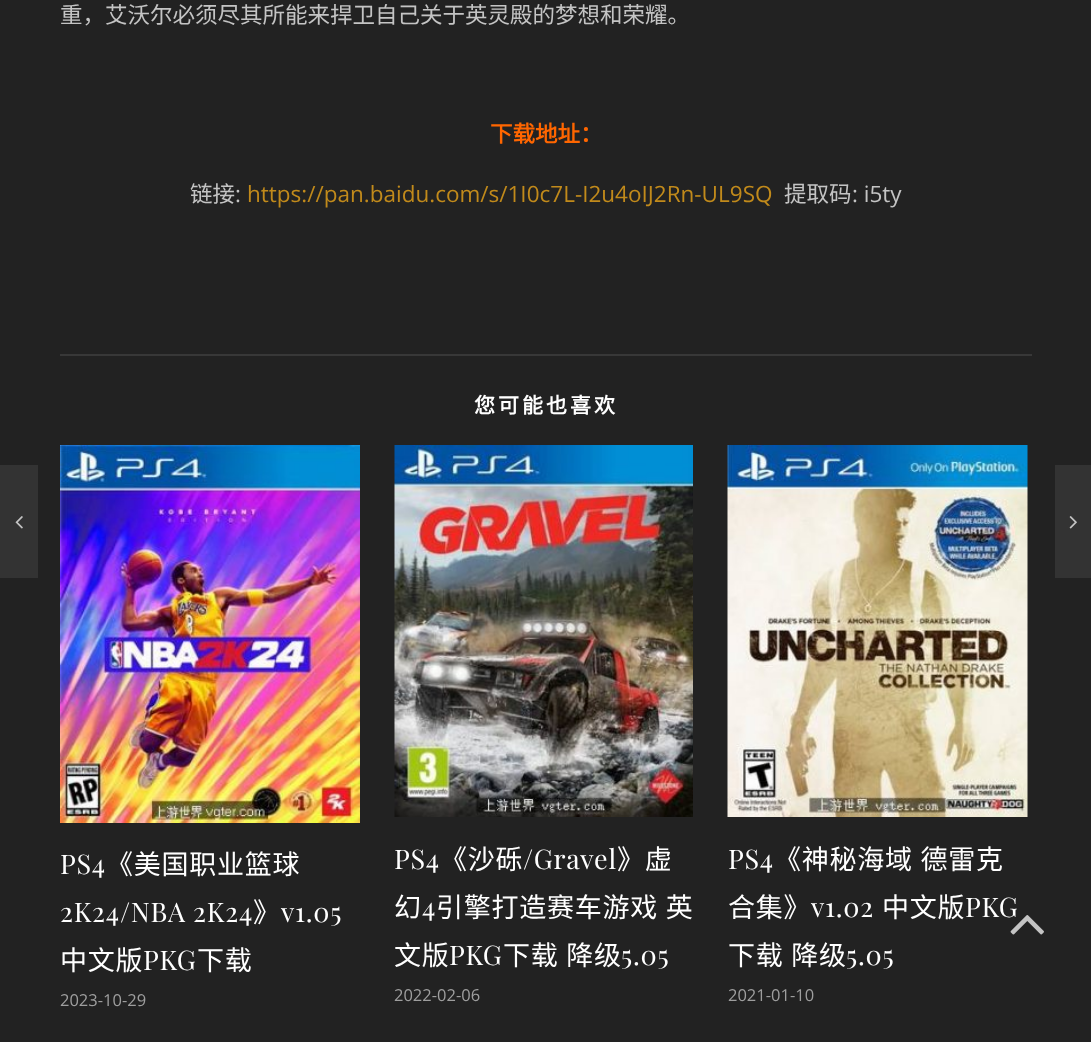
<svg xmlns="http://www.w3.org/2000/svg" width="1091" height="1042">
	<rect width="100%" height="100%" fill="#222222" />
	<text x="60" y="23" font-family="Noto Sans CJK SC" font-size="22.5" fill="#C4C4C4">重，艾沃尔必须尽其所能来捍卫自己关于英灵殿的梦想和荣耀。</text>
	<text x="490" y="142" font-family="Noto Sans CJK SC" font-size="22.5" font-weight="700" fill="#FF6600">下载地址：</text>
	<text x="190" y="202" font-family="Noto Sans CJK SC" font-size="22.5" fill="#C4C4C4">链接</text>
	<text x="235" y="202" font-family="Open Sans" font-size="22.5" fill="#C4C4C4">:</text>
	<text x="247" y="202" font-family="Open Sans" font-size="22.5" fill="#C18A1B">https://pan.baidu.com/s/1I0c7L-I2u4oIJ2Rn-UL9SQ</text>
	<text x="784" y="202" font-family="Noto Sans CJK SC" font-size="22.5" fill="#C4C4C4">提取码</text>
	<text x="852" y="202" font-family="Open Sans" font-size="22.5" fill="#C4C4C4">: i5ty</text>
	<rect x="60" y="354" width="972" height="2" fill="#383838" />
	<rect x="0" y="465" width="38" height="113" fill="#333333" />
	<image x="15" y="516" width="8" height="13" href="assets/img1.png" />
	<text x="474" y="413" font-family="Noto Sans CJK SC" font-size="21" font-weight="700" letter-spacing="3" fill="#FFFFFF">您可能也喜欢</text>
	<image x="60" y="445" width="300" height="378" href="assets/img2.png" />
	<text x="60" y="874" font-family="Playfair Display" font-size="27" letter-spacing="0.75" fill="#FFFFFF">PS4</text>
	<text x="106" y="874" font-family="Noto Sans CJK SC" font-size="27" letter-spacing="0.75" fill="#FFFFFF">《美国职业篮球</text>
	<text x="60" y="922" font-family="Playfair Display" font-size="27" letter-spacing="0.75" fill="#FFFFFF">2K24/NBA 2K24</text>
	<text x="253" y="922" font-family="Noto Sans CJK SC" font-size="27" letter-spacing="0.75" fill="#FFFFFF">》</text>
	<text x="281" y="922" font-family="Playfair Display" font-size="27" letter-spacing="0.75" fill="#FFFFFF">v1.05</text>
	<text x="60" y="970" font-family="Noto Sans CJK SC" font-size="27" letter-spacing="0.75" fill="#FFFFFF">中文版</text>
	<text x="143" y="970" font-family="Playfair Display" font-size="27" letter-spacing="0.75" fill="#FFFFFF">PKG</text>
	<text x="197" y="970" font-family="Noto Sans CJK SC" font-size="27" letter-spacing="0.75" fill="#FFFFFF">下载</text>
	<text x="60" y="1006" font-family="Open Sans" font-size="16.5" fill="#9E9E9E">2023-10-29</text>
	<image x="394" y="445" width="299" height="372" href="assets/img3.png" />
	<text x="394" y="869" font-family="Playfair Display" font-size="27" letter-spacing="0.75" fill="#FFFFFF">PS4</text>
	<text x="440" y="869" font-family="Noto Sans CJK SC" font-size="27" letter-spacing="0.75" fill="#FFFFFF">《沙砾</text>
	<text x="523" y="869" font-family="Playfair Display" font-size="27" letter-spacing="0.75" fill="#FFFFFF">/Gravel</text>
	<g font-family="Noto Sans CJK SC" font-size="27" letter-spacing="0.75" fill="#FFFFFF">
		<text x="617" y="869">》虚</text>
		<text x="394" y="917">幻</text>
	</g>
	<text x="422" y="917" font-family="Playfair Display" font-size="27" letter-spacing="0.75" fill="#FFFFFF">4</text>
	<g font-family="Noto Sans CJK SC" font-size="27" letter-spacing="0.75" fill="#FFFFFF">
		<text x="436" y="917" word-spacing="1">引擎打造赛车游戏 英</text>
		<text x="394" y="965">文版</text>
	</g>
	<text x="449" y="965" font-family="Playfair Display" font-size="27" letter-spacing="0.75" fill="#FFFFFF">PKG</text>
	<text x="503" y="965" word-spacing="1" font-family="Noto Sans CJK SC" font-size="27" letter-spacing="0.75" fill="#FFFFFF">下载 降级</text>
	<text x="621" y="965" font-family="Playfair Display" font-size="27" letter-spacing="0.75" fill="#FFFFFF">5.05</text>
	<text x="394" y="1001" font-family="Open Sans" font-size="16.5" fill="#9E9E9E">2022-02-06</text>
	<image x="727" y="445" width="301" height="372" href="assets/img4.png" />
	<text x="728" y="869" font-family="Playfair Display" font-size="27" letter-spacing="0.75" fill="#FFFFFF">PS4</text>
	<g font-family="Noto Sans CJK SC" font-size="27" letter-spacing="0.75" fill="#FFFFFF">
		<text x="774" y="869" word-spacing="1">《神秘海域 德雷克</text>
		<text x="728" y="917">合集》</text>
	</g>
	<text x="811" y="917" font-family="Playfair Display" font-size="27" letter-spacing="0.75" fill="#FFFFFF">v1.02</text>
	<text x="882" y="917" font-family="Noto Sans CJK SC" font-size="27" letter-spacing="0.75" fill="#FFFFFF">中文版</text>
	<text x="965" y="917" font-family="Playfair Display" font-size="27" letter-spacing="0.75" fill="#FFFFFF">PKG</text>
	<text x="728" y="965" word-spacing="1" font-family="Noto Sans CJK SC" font-size="27" letter-spacing="0.75" fill="#FFFFFF">下载 降级</text>
	<text x="846" y="965" font-family="Playfair Display" font-size="27" letter-spacing="0.75" fill="#FFFFFF">5.05</text>
	<text x="728" y="1001" font-family="Open Sans" font-size="16.5" fill="#9E9E9E">2021-01-10</text>
	<rect x="1055" y="465" width="36" height="113" fill="#333333" />
	<image x="1069" y="516" width="8" height="13" href="assets/img5.png" />
	<image x="1010" y="915" width="34" height="20" href="assets/img6.png" />
</svg>
